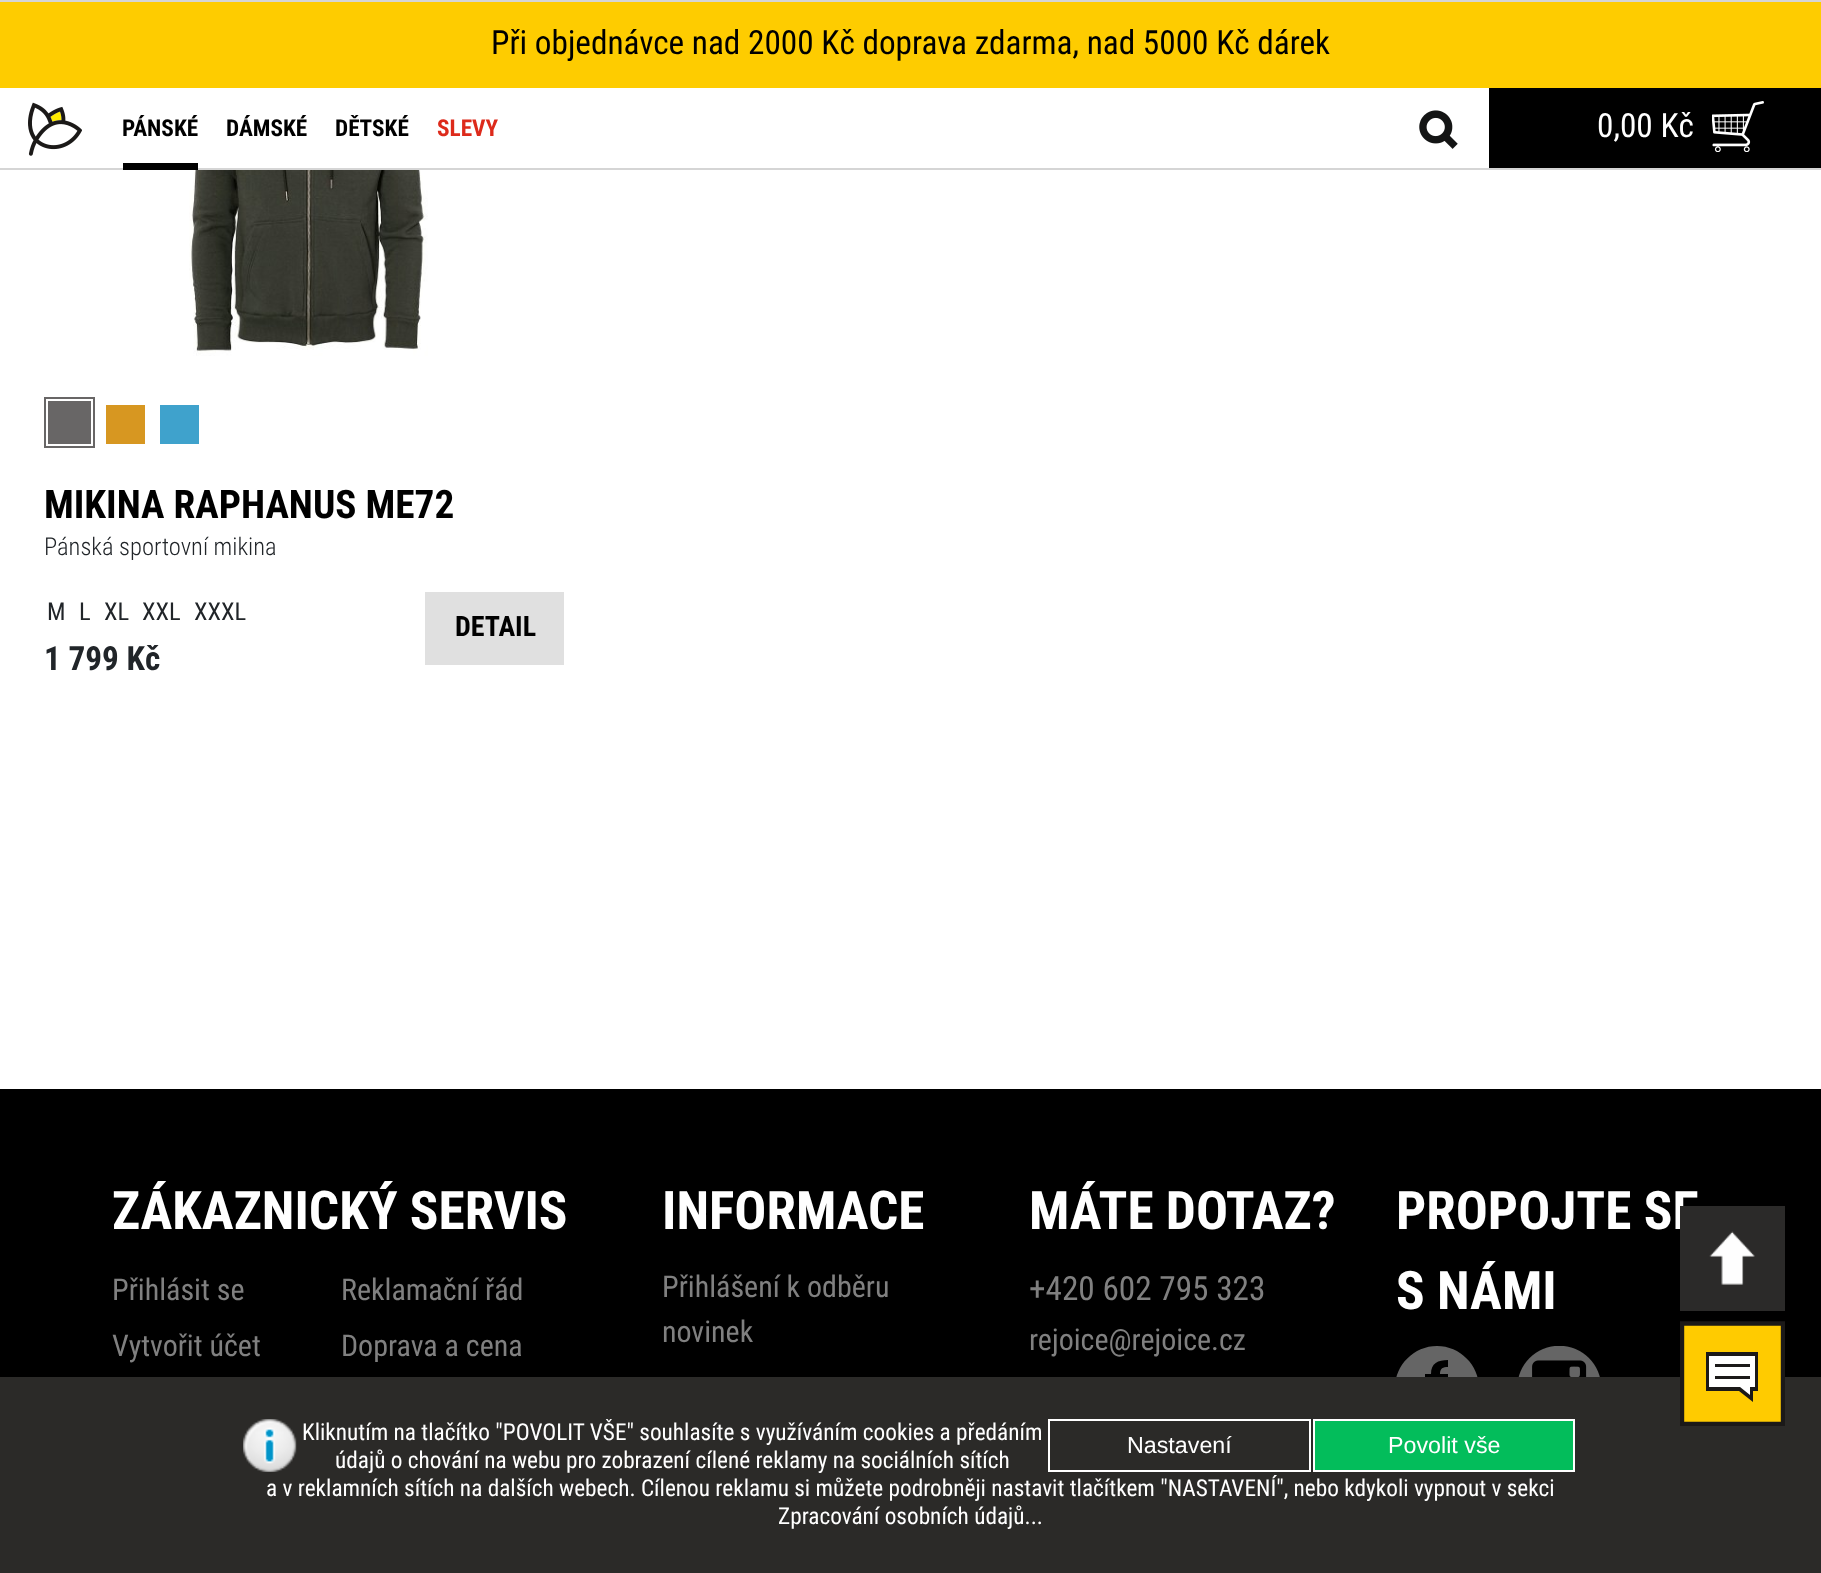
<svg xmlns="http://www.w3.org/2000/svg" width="1821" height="1573">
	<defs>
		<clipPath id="clip1"><rect x="1680" y="1321" width="105" height="105" /></clipPath>
	</defs>
	<rect width="100%" height="100%" fill="#FFFFFF" />
	<rect x="0" y="0" width="1821" height="2" fill="#D5D5D5" />
	<rect x="0" y="168" width="1821" height="2" fill="#D5D5D5" />
	<rect x="0" y="2" width="1821" height="86" fill="#FECC00" />
	<text x="491" y="54" font-family="Roboto Condensed" font-size="33.25" fill="#000000">Při objednávce nad 2000 Kč doprava zdarma, nad 5000 Kč dárek</text>
	<image x="28" y="102" width="54" height="54" href="assets/img1.png" />
	<rect x="123" y="163" width="75" height="7" fill="#000000" />
	<g font-family="Roboto Condensed" font-size="23.28" font-weight="700" fill="#000000">
		<text x="122" y="136">PÁNSKÉ</text>
		<text x="226" y="136">DÁMSKÉ</text>
		<text x="335" y="136">DĚTSKÉ</text>
	</g>
	<text x="437" y="136" font-family="Roboto Condensed" font-size="23.28" font-weight="700" fill="#DD2A1B">SLEVY</text>
	<image x="1419" y="110" width="39" height="39" href="assets/img2.png" />
	<rect x="1489" y="88" width="332" height="80" fill="#000000" />
	<text x="1597" y="137" font-family="Roboto Condensed" font-size="33.25" fill="#FFFFFF">0,00 Kč</text>
	<image x="1712" y="101" width="52" height="51" href="assets/img3.png" />
	<image x="189" y="170" width="239" height="186" href="assets/img4.png" />
	<rect x="44" y="397" width="51" height="51" fill="#686666" />
	<rect x="47" y="400" width="45" height="45" fill="none" stroke="#FFFFFF" stroke-width="2" />
	<rect x="106" y="405" width="39" height="39" fill="#D79721" />
	<rect x="160" y="405" width="39" height="39" fill="#3FA2CC" />
	<text x="44" y="518" font-family="Roboto Condensed" font-size="39.25" font-weight="700" fill="#000000">MIKINA RAPHANUS ME72</text>
	<text x="44" y="555" font-family="Roboto Condensed" font-size="24.5" font-weight="300" fill="#212529">Pánská sportovní mikina</text>
	<g font-family="Roboto Condensed" font-size="24.5" fill="#212529">
		<text x="47" y="620">M</text>
		<text x="79" y="620">L</text>
		<text x="104" y="620">XL</text>
		<text x="142" y="620">XXL</text>
		<text x="194" y="620">XXXL</text>
	</g>
	<text x="44" y="670" font-family="Roboto Condensed" font-size="33.25" font-weight="700" fill="#212529">1 799 Kč</text>
	<rect x="425" y="592" width="139" height="73" fill="#E0E0E0" />
	<text x="455" y="636" font-family="Roboto Condensed" font-size="28" font-weight="700" fill="#000000">DETAIL</text>
	<rect x="0" y="1089" width="1821" height="288" fill="#000000" />
	<text x="112" y="1229" font-family="Roboto Condensed" font-size="53.25" font-weight="700" fill="#FFFFFF">ZÁKAZNICKÝ SERVIS</text>
	<g font-family="Roboto Condensed" font-size="30" fill="#808080">
		<text x="112" y="1300">Přihlásit se</text>
		<text x="112" y="1356">Vytvořit účet</text>
		<text x="341" y="1300">Reklamační řád</text>
		<text x="341" y="1356">Doprava a cena</text>
	</g>
	<text x="662" y="1229" font-family="Roboto Condensed" font-size="53.25" font-weight="700" fill="#FFFFFF">INFORMACE</text>
	<g font-family="Roboto Condensed" font-size="30" fill="#808080">
		<text x="662" y="1297">Přihlášení k odběru</text>
		<text x="662" y="1342">novinek</text>
	</g>
	<text x="1029" y="1229" font-family="Roboto Condensed" font-size="53.25" font-weight="700" fill="#FFFFFF">MÁTE DOTAZ?</text>
	<text x="1029" y="1300" font-family="Roboto Condensed" font-size="33.25" fill="#808080">+420 602 795 323</text>
	<text x="1029" y="1350" font-family="Roboto Condensed" font-size="30" fill="#808080">rejoice@rejoice.cz</text>
	<g font-family="Roboto Condensed" font-size="53.25" font-weight="700" fill="#FFFFFF">
		<text x="1396" y="1229">PROPOJTE SE</text>
		<text x="1396" y="1309">S NÁMI</text>
	</g>
	<path d="M1437 1346C1460 1346 1479 1365 1479 1388C1479 1411 1460 1430 1437 1430C1414 1430 1395 1411 1395 1388C1395 1365 1414 1346 1437 1346ZM1440 1414H1431V1380H1425V1374H1431C1431 1363 1438 1360 1448 1360V1367C1443 1367 1440 1368 1440 1374H1448V1380H1440Z" fill="#656565" fill-rule="evenodd" />
	<image x="1518" y="1346" width="82" height="31" href="assets/img5.png" />
	<rect x="1680" y="1206" width="105" height="105" fill="#2B2A29" />
	<image x="1709" y="1231" width="46" height="54" href="assets/img6.png" />
	<rect x="0" y="1377" width="1821" height="196" fill="#2B2A28" />
	<rect x="1684" y="1325" width="97" height="97" fill="#FFCB00" />
	<g clip-path="url(#clip1)">
		<path d="M1682 1323.5H1783V1424H1682Z" fill="none" stroke="#1B1918" stroke-width="4.4" />
	</g>
	<path d="M1708 1355H1756V1389H1751V1399L1740 1389H1708Z" fill="#FFFFFF" fill-rule="evenodd" />
	<path d="M1708 1352H1758V1391H1753V1402L1739 1391H1706V1352ZM1755 1356H1709V1387H1740L1750 1395V1387H1755Z" fill="#1B1918" fill-rule="evenodd" />
	<rect x="1715" y="1364" width="35" height="3" fill="#1B1918" />
	<rect x="1715" y="1376" width="35" height="3" fill="#1B1918" />
	<image x="243" y="1419" width="54" height="53" href="assets/img7.png" />
	<text x="302" y="1440" font-family="Roboto Condensed" font-size="23.28" fill="#FFFFFF">Kliknutím na tlačítko "POVOLIT VŠE" souhlasíte s využíváním cookies a předáním</text>
	<rect x="1049" y="1420" width="261" height="51" fill="none" stroke="#FFFFFF" stroke-width="2" />
	<text x="1127" y="1453" font-family="Liberation Sans" font-size="23.28" fill="#FFFFFF">Nastavení</text>
	<rect x="1314" y="1420" width="260" height="51" fill="#03BD5B" stroke="#FFFFFF" stroke-width="2" />
	<text x="1388" y="1453" font-family="Liberation Sans" font-size="23.28" fill="#FFFFFF">Povolit vše</text>
	<g font-family="Roboto Condensed" font-size="23.28" fill="#FFFFFF">
		<text x="335" y="1468">údajů o chování na webu pro zobrazení cílené reklamy na sociálních sítích</text>
		<text x="266" y="1496">a v reklamních sítích na dalších webech. Cílenou reklamu si můžete podrobněji nastavit tlačítkem "NASTAVENÍ", nebo kdykoli vypnout v sekci</text>
		<text x="778" y="1524">Zpracování osobních údajů...</text>
	</g>
</svg>
